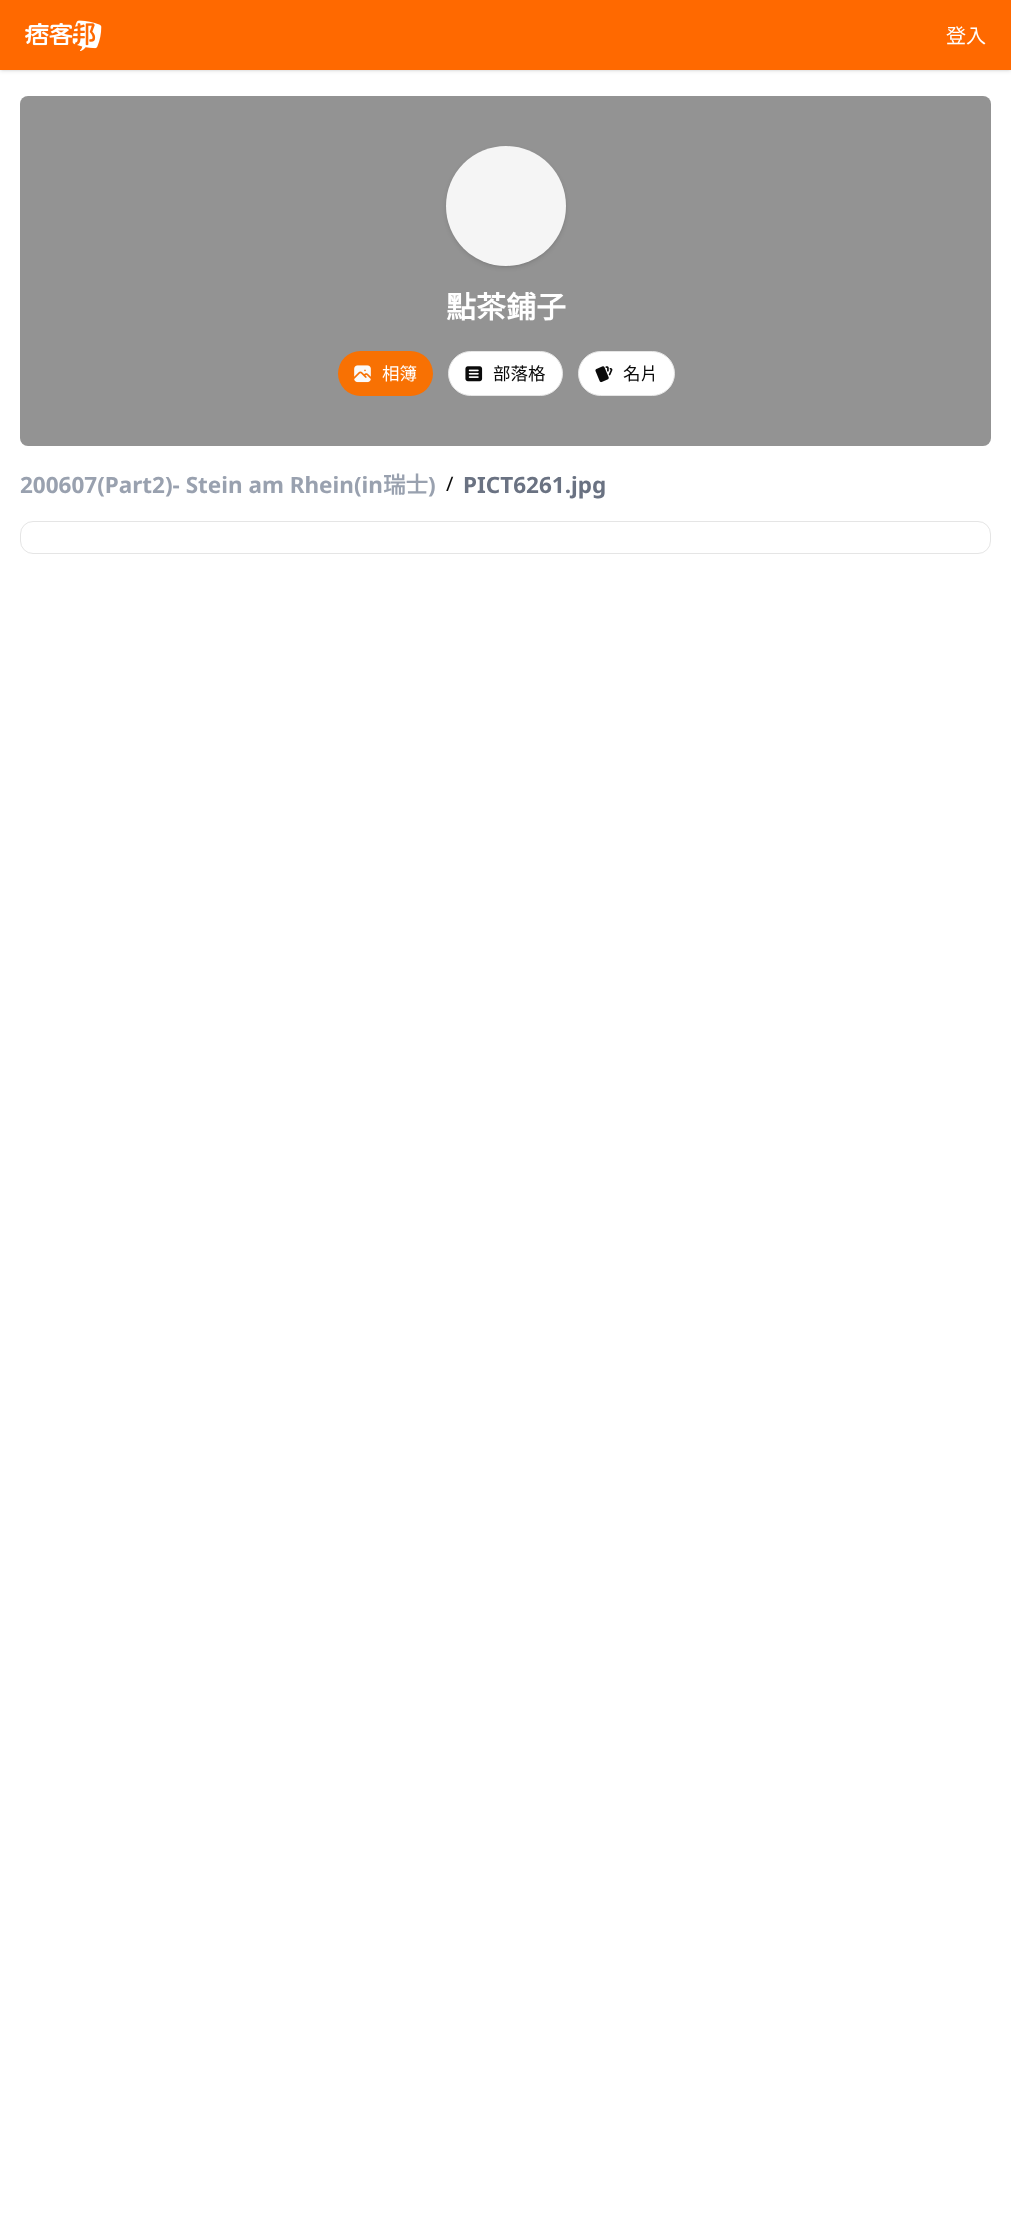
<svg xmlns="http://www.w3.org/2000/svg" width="1011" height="2229">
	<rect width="100%" height="100%" fill="#FFFFFF" />
	<rect x="1" y="3" width="1009" height="67" fill="#000000" fill-opacity="0.1" filter="blur(1px)" />
	<rect x="0" y="1" width="1011" height="70" fill="#000000" fill-opacity="0.1" filter="blur(2px)" />
	<rect x="0" y="0" width="1011" height="70" fill="#FF6900" />
	<image x="25" y="20" width="77" height="31" href="assets/img1.png" />
	<text x="946" y="43" font-family="Noto Sans CJK TC" font-size="20" fill="#FFFFFF">登入</text>
	<rect x="20" y="96" width="971" height="350" rx="8" fill="#F5F5F5" />
	<rect x="20" y="96" width="971" height="350" rx="8" fill="#000000" fill-opacity="0.4" />
	<rect x="448" y="149" width="117" height="117" rx="58.5" fill="#000000" fill-opacity="0.1" filter="blur(1px)" />
	<rect x="446" y="148" width="120" height="120" rx="60" fill="#000000" fill-opacity="0.1" filter="blur(2px)" />
	<circle cx="506" cy="206" r="60" fill="#F5F5F5" />
	<text x="446" y="318" font-family="Noto Sans CJK TC" font-size="30" font-weight="700" fill="#FFFFFF">點茶鋪子</text>
	<rect x="338" y="351" width="95" height="45" rx="22.5" fill="#F87103" />
	<image x="354" y="365" width="17" height="18" href="assets/img2.png" />
	<text x="382" y="380" font-family="Noto Sans CJK TC" font-size="17.5" fill="#FFFFFF">相簿</text>
	<rect x="448.5" y="351.5" width="114" height="44" rx="22" fill="#FFFFFF" stroke="#E5E5E5" />
	<image x="465" y="366" width="18" height="16" href="assets/img3.png" />
	<text x="493" y="380" font-family="Noto Sans CJK TC" font-size="17.5" fill="#0A0A0A">部落格</text>
	<rect x="578.5" y="351.5" width="96" height="44" rx="22" fill="#FFFFFF" stroke="#E5E5E5" />
	<image x="595" y="366" width="18" height="17" href="assets/img4.png" />
	<text x="623" y="380" font-family="Noto Sans CJK TC" font-size="17.5" fill="#0A0A0A">名片</text>
	<text x="20" y="493" font-family="Noto Sans" font-size="22.5" font-weight="700" fill="#99A1AF">200607(Part2)- Stein am Rhein(in</text>
	<text x="383" y="493" font-family="Noto Sans CJK TC" font-size="22.5" font-weight="700" fill="#99A1AF">瑞士</text>
	<text x="428" y="493" font-family="Noto Sans" font-size="22.5" font-weight="700" fill="#99A1AF">)</text>
	<text x="446" y="491" font-family="Noto Sans" font-size="20" fill="#0A0A0A">/</text>
	<text x="463" y="493" font-family="Noto Sans" font-size="22.5" font-weight="700" fill="#6A7282">PICT6261.jpg</text>
	<rect x="20.5" y="521.5" width="970" height="32" rx="12.5" fill="none" stroke="#E5E5E5" />
</svg>
